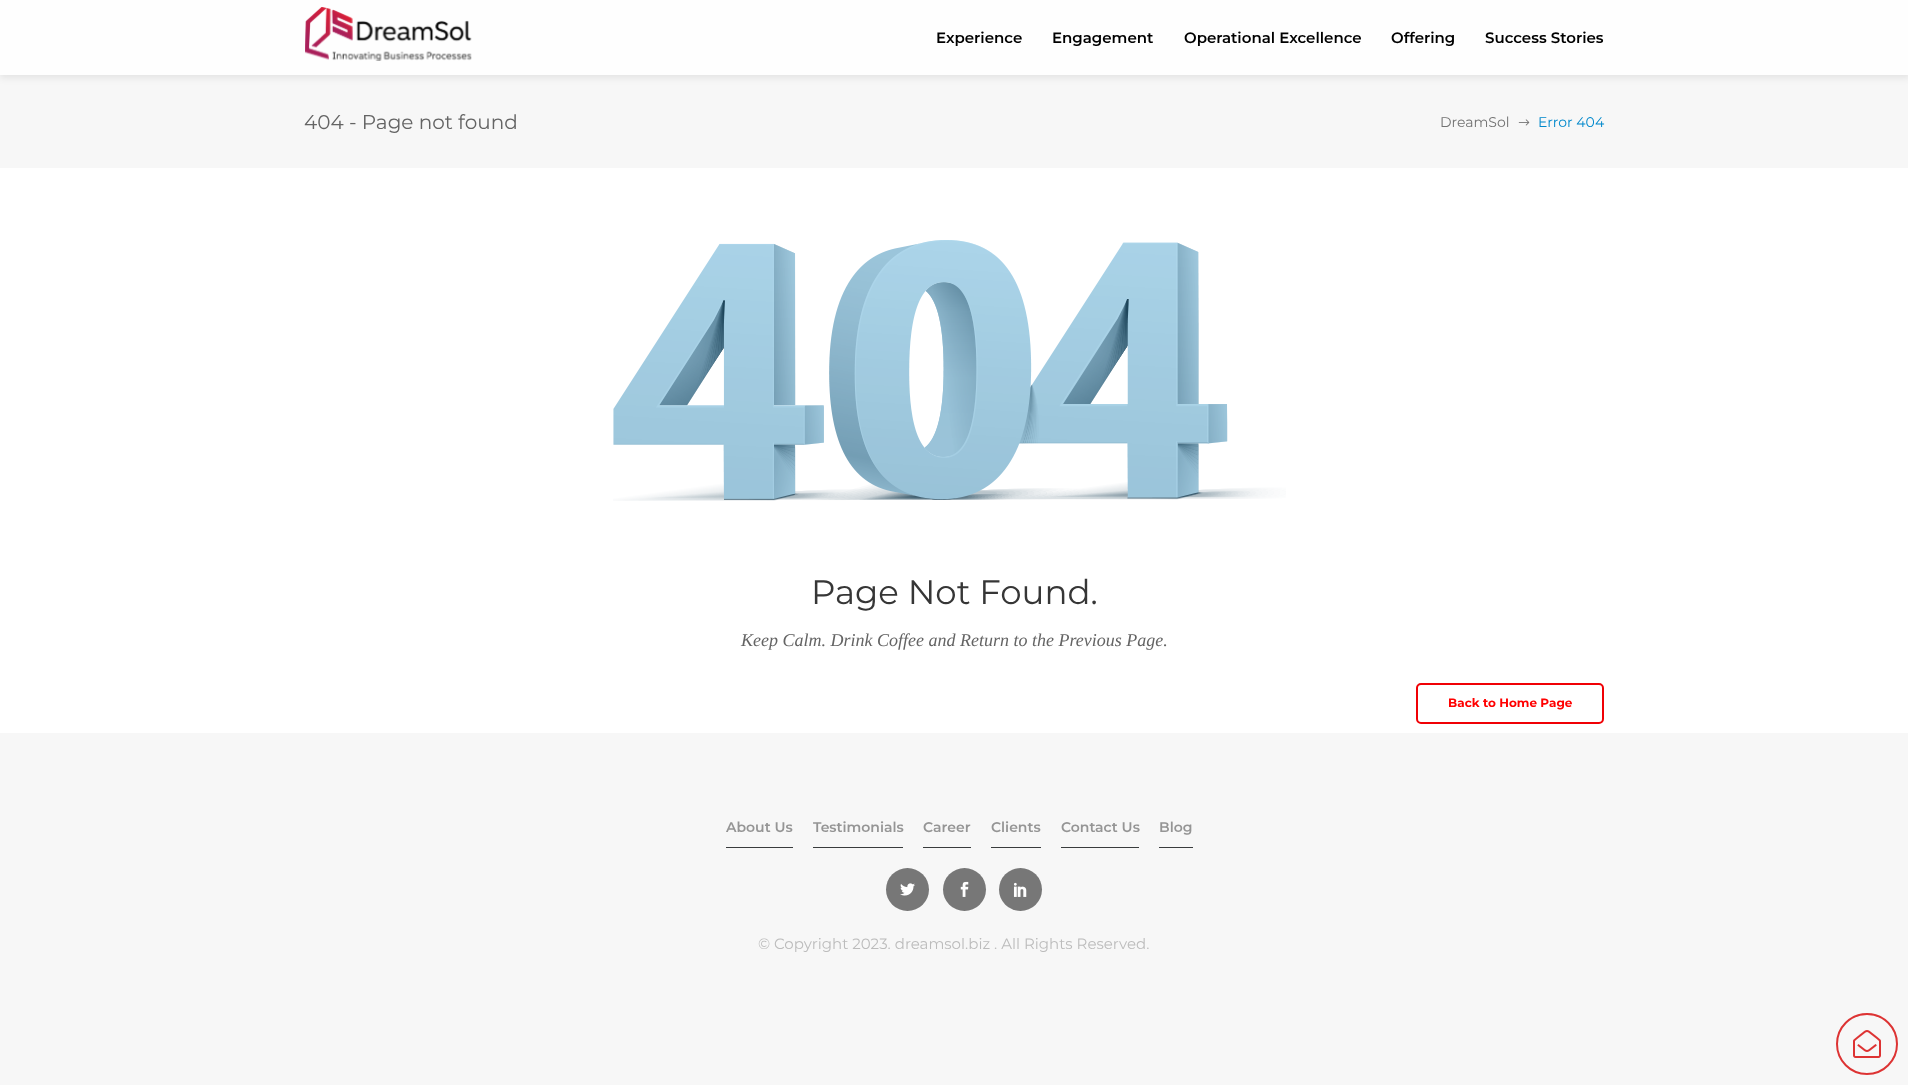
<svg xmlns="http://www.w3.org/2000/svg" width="1908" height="1085">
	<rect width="100%" height="100%" fill="#F7F7F7" />
	<rect x="0" y="168" width="1908" height="565" fill="#FFFFFF" />
	<rect x="0" y="1" width="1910" height="77" fill="#000000" fill-opacity="0.08" filter="blur(3.5px)" />
	<rect x="0" y="0" width="1908" height="75" fill="#FEFEFE" />
	<image x="305" y="7" width="167" height="54" href="assets/img1.png" />
	<g font-family="Montserrat" font-size="15" font-weight="600" fill="#000000">
		<text x="936" y="43">Experience</text>
		<text x="1052" y="43">Engagement</text>
		<text x="1184" y="43">Operational Excellence</text>
		<text x="1391" y="43">Offering</text>
		<text x="1485" y="43">Success Stories</text>
	</g>
	<text x="304" y="129" font-family="Montserrat" font-size="20" fill="#646464">404 - Page not found</text>
	<text x="1440" y="127" font-family="Montserrat" font-size="14" fill="#727272">DreamSol</text>
	<image x="1518" y="119" width="12" height="7" href="assets/img2.png" />
	<text x="1538" y="127" font-family="Montserrat" font-size="14" fill="#0088CC">Error 404</text>
	<image x="613" y="240" width="673" height="261" href="assets/img3.png" />
	<text x="811" y="604" font-family="Montserrat" font-size="34" fill="#363636">Page Not Found.</text>
	<text x="741" y="646" font-family="Liberation Serif" font-size="18" font-style="italic" fill="#646464">Keep Calm. Drink Coffee and Return to the Previous Page.</text>
	<rect x="1417" y="684" width="186" height="39" rx="4" fill="none" stroke="#F00005" stroke-width="2" />
	<text x="1448" y="707" font-family="Montserrat" font-size="12" font-weight="700" fill="#FF0000">Back to Home Page</text>
	<rect x="726" y="847" width="67" height="1" fill="#393C3D" />
	<text x="726" y="832" font-family="Montserrat" font-size="14" font-weight="600" fill="#959595">About Us</text>
	<rect x="813" y="847" width="90" height="1" fill="#393C3D" />
	<text x="813" y="832" font-family="Montserrat" font-size="14" font-weight="600" fill="#959595">Testimonials</text>
	<rect x="923" y="847" width="48" height="1" fill="#393C3D" />
	<text x="923" y="832" font-family="Montserrat" font-size="14" font-weight="600" fill="#959595">Career</text>
	<rect x="991" y="847" width="50" height="1" fill="#393C3D" />
	<text x="991" y="832" font-family="Montserrat" font-size="14" font-weight="600" fill="#959595">Clients</text>
	<rect x="1061" y="847" width="78" height="1" fill="#393C3D" />
	<text x="1061" y="832" font-family="Montserrat" font-size="14" font-weight="600" fill="#959595">Contact Us</text>
	<rect x="1159" y="847" width="34" height="1" fill="#393C3D" />
	<text x="1159" y="832" font-family="Montserrat" font-size="14" font-weight="600" fill="#959595">Blog</text>
	<circle cx="907.5" cy="889.5" r="21.5" fill="#777777" />
	<image x="900" y="883" width="15" height="13" href="assets/img4.png" />
	<circle cx="964.5" cy="889.5" r="21.5" fill="#777777" />
	<image x="960" y="881" width="9" height="16" href="assets/img5.png" />
	<circle cx="1020.5" cy="889.5" r="21.5" fill="#777777" />
	<image x="1013" y="882" width="14" height="15" href="assets/img6.png" />
	<text x="758" y="949" font-family="Montserrat" font-size="15" fill="#BCBCBC">© Copyright 2023. dreamsol.biz . All Rights Reserved.</text>
	<circle cx="1867" cy="1044" r="30" fill="none" stroke="#DD3333" stroke-width="2" />
	<image x="1853" y="1030" width="28" height="28" href="assets/img7.png" />
</svg>
